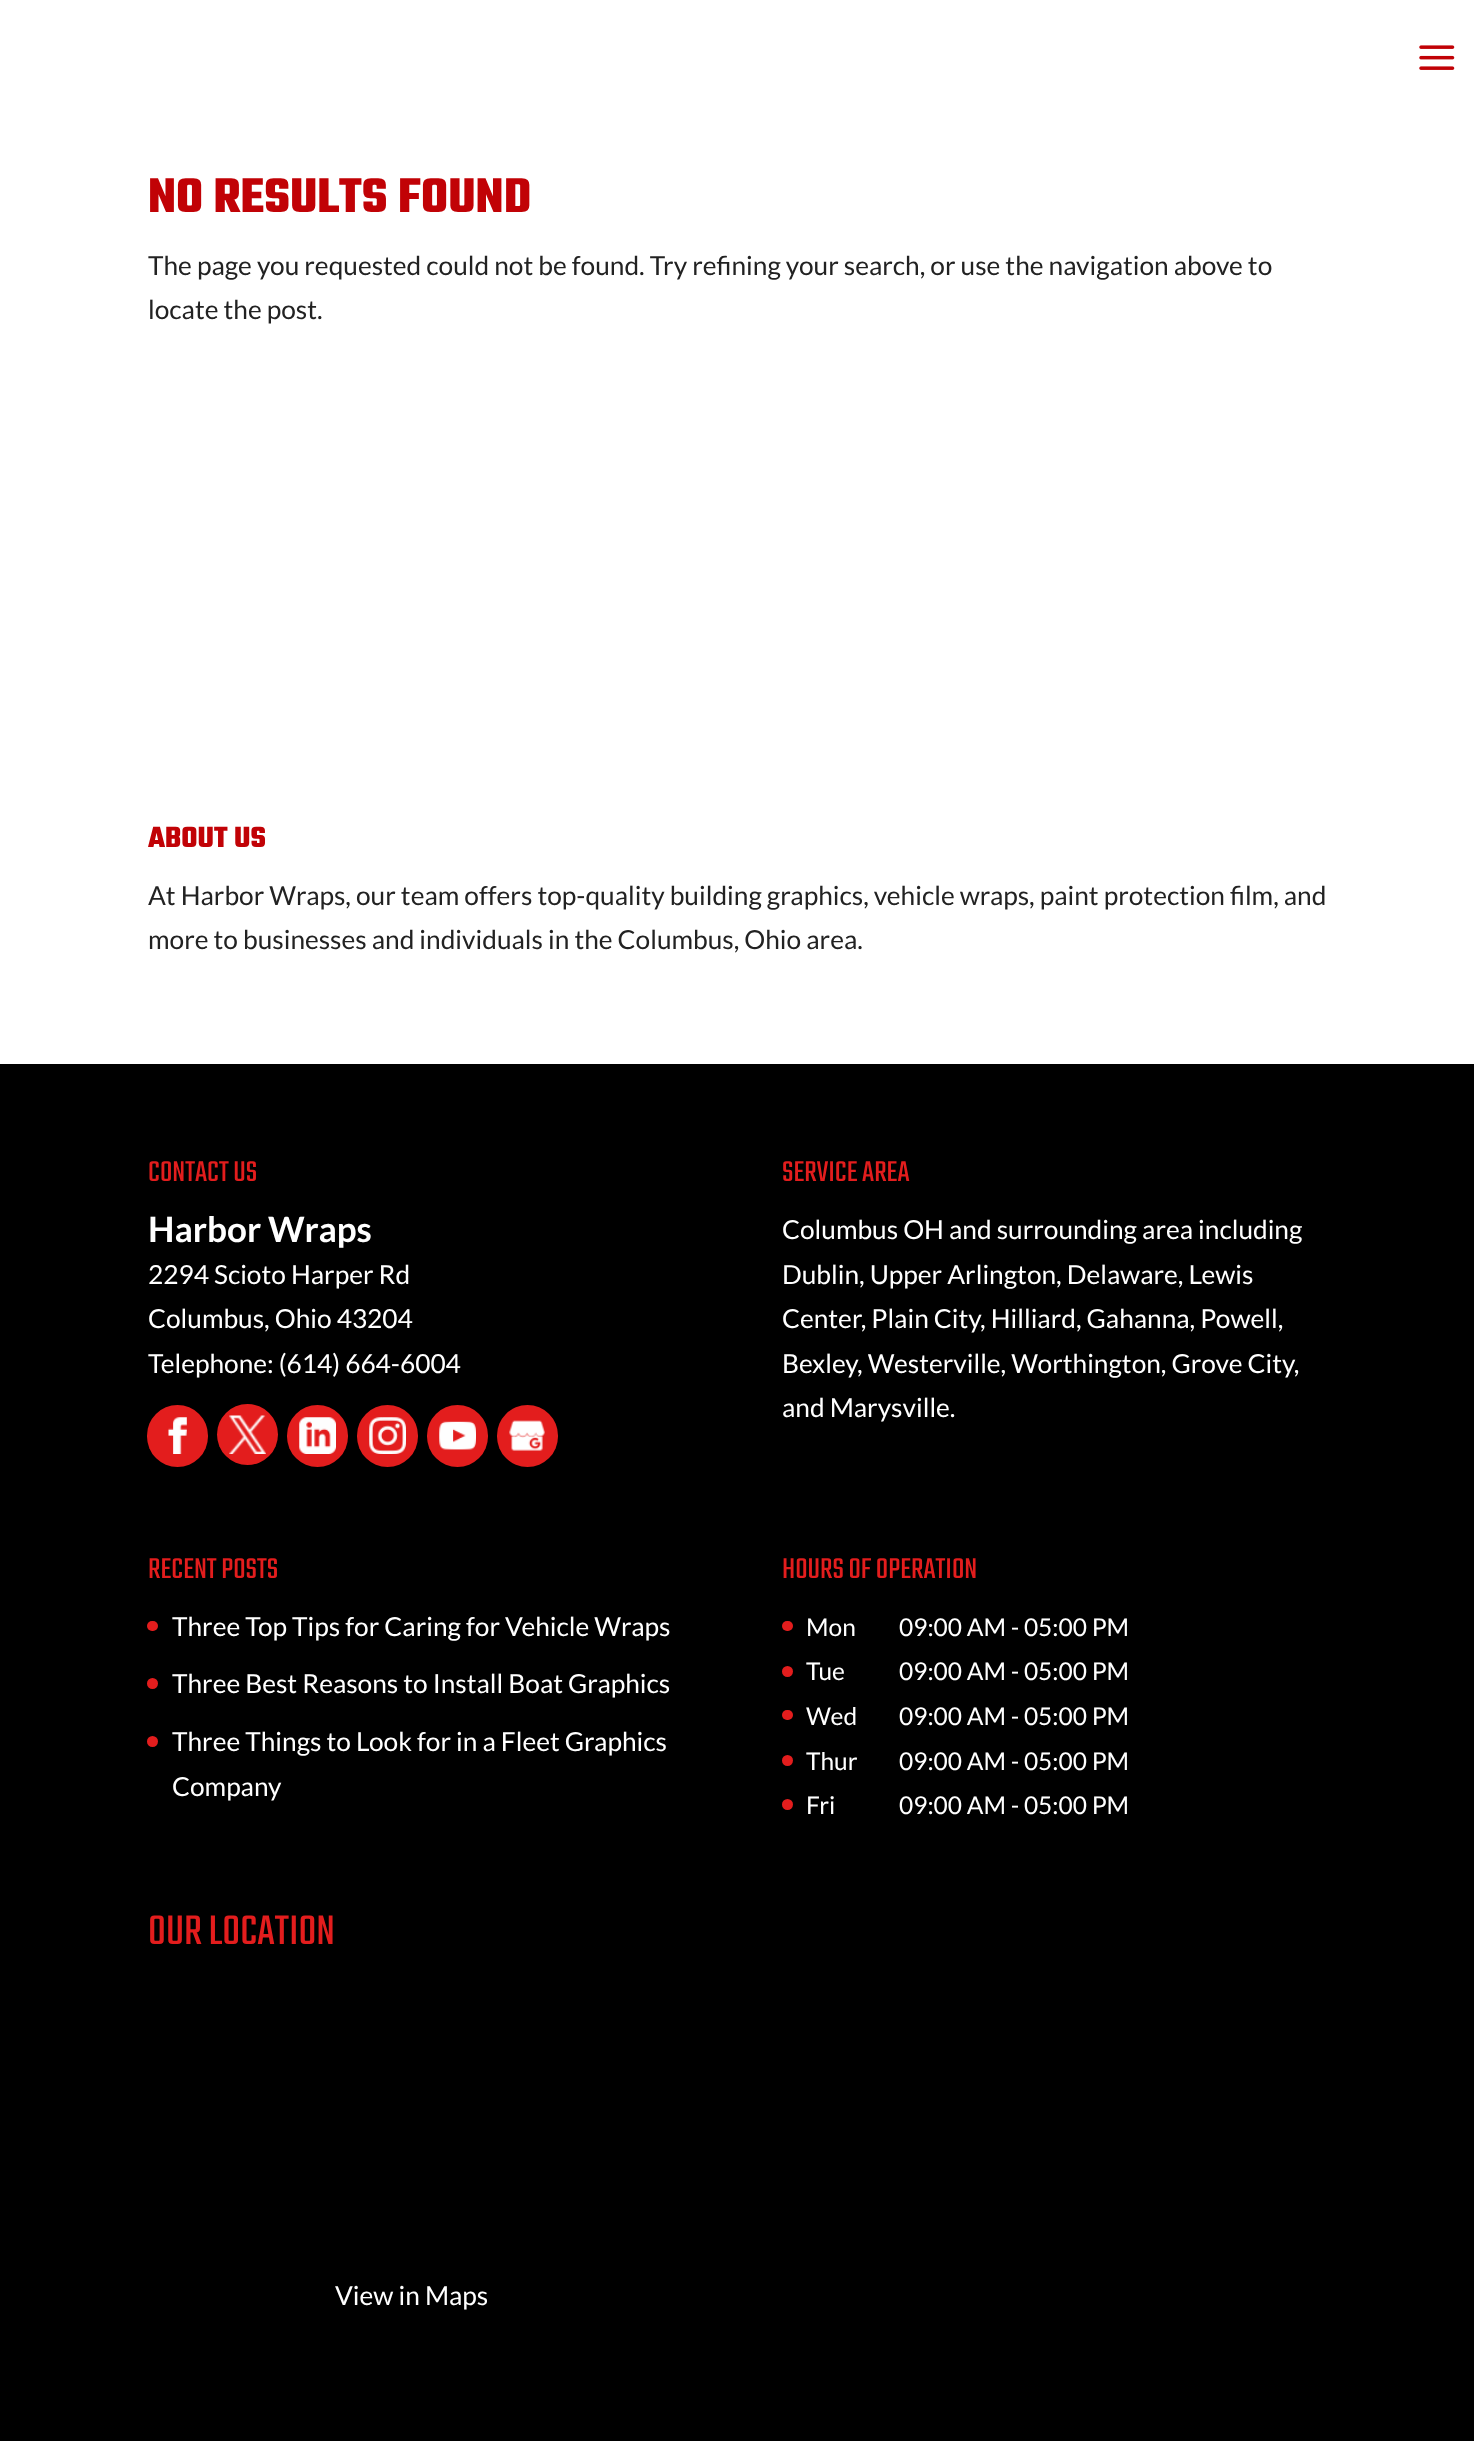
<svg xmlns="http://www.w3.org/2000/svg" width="1474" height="2441">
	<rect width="100%" height="100%" fill="#000000" />
	<rect x="0" y="0" width="1474" height="1064" fill="#FFFFFF" />
	<image x="1419" y="45" width="36" height="25" href="assets/img1.png" />
	<text x="148" y="212" font-family="Teko" font-size="52.5" font-weight="300" fill="#C10206">NO RESULTS FOUND</text>
	<g font-family="Lato" font-size="26.25" fill="#222222">
		<text x="148" y="275">The page you requested could not be found. Try refining your search, or use the navigation above to</text>
		<text x="148" y="319">locate the post.</text>
	</g>
	<text x="148" y="847" font-family="Teko" font-size="31.5" font-weight="300" fill="#C10206">ABOUT US</text>
	<g font-family="Lato" font-size="26.25" fill="#222222">
		<text x="148" y="905">At Harbor Wraps, our team offers top-quality building graphics, vehicle wraps, paint protection film, and</text>
		<text x="148" y="949">more to businesses and individuals in the Columbus, Ohio area.</text>
	</g>
	<text x="148" y="1181" font-family="'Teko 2'" font-size="31.5" font-weight="300" fill="#E31D1D">CONTACT US</text>
	<text x="148" y="1242" font-family="Lato" font-size="35" font-weight="700" fill="#FFFFFF">Harbor Wraps</text>
	<g font-family="Lato" font-size="26.25" fill="#FFFFFF">
		<text x="148" y="1284">2294 Scioto Harper Rd</text>
		<text x="148" y="1328">Columbus, Ohio 43204</text>
		<text x="148" y="1373">Telephone: (614) 664-6004</text>
	</g>
	<rect x="147" y="1405" width="61" height="62" rx="30.5" fill="#E31D1D" />
	<image x="168" y="1417" width="19" height="37" href="assets/img2.png" />
	<circle cx="247.5" cy="1434.5" r="30.5" fill="#E31D1D" />
	<image x="229" y="1415" width="37" height="39" href="assets/img3.png" />
	<rect x="287" y="1405" width="61" height="62" rx="30.5" fill="#E31D1D" />
	<image x="299" y="1417" width="37" height="37" href="assets/img4.png" />
	<rect x="357" y="1405" width="61" height="62" rx="30.5" fill="#E31D1D" />
	<image x="369" y="1417" width="37" height="37" href="assets/img5.png" />
	<rect x="427" y="1405" width="61" height="62" rx="30.5" fill="#E31D1D" />
	<image x="439" y="1421" width="37" height="29" href="assets/img6.png" />
	<rect x="497" y="1405" width="61" height="62" rx="30.5" fill="#E31D1D" />
	<image x="509" y="1420" width="36" height="31" href="assets/img7.png" />
	<text x="782" y="1181" font-family="'Teko 2'" font-size="31.5" font-weight="300" fill="#E31D1D">SERVICE AREA</text>
	<g font-family="Lato" font-size="26.25" fill="#FFFFFF">
		<text x="782" y="1239">Columbus OH and surrounding area including</text>
		<text x="782" y="1284">Dublin, Upper Arlington, Delaware, Lewis</text>
		<text x="782" y="1328">Center, Plain City, Hilliard, Gahanna, Powell,</text>
		<text x="782" y="1373">Bexley, Westerville, Worthington, Grove City,</text>
		<text x="782" y="1417">and Marysville.</text>
	</g>
	<text x="148" y="1578" font-family="'Teko 2'" font-size="31.5" font-weight="300" fill="#E31D1D">RECENT POSTS</text>
	<rect x="147" y="1621" width="11" height="10" rx="5" fill="#E31D1D" />
	<text x="172" y="1636" font-family="Lato" font-size="26.25" fill="#FFFFFF">Three Top Tips for Caring for Vehicle Wraps</text>
	<circle cx="152.5" cy="1683.5" r="5.5" fill="#E31D1D" />
	<text x="172" y="1693" font-family="Lato" font-size="26.25" fill="#FFFFFF">Three Best Reasons to Install Boat Graphics</text>
	<circle cx="152.5" cy="1741.5" r="5.5" fill="#E31D1D" />
	<g font-family="Lato" font-size="26.25" fill="#FFFFFF">
		<text x="172" y="1751">Three Things to Look for in a Fleet Graphics</text>
		<text x="172" y="1796">Company</text>
	</g>
	<text x="782" y="1578" font-family="'Teko 2'" font-size="31.5" font-weight="300" fill="#E31D1D">HOURS OF OPERATION</text>
	<rect x="782" y="1621" width="11" height="10" rx="5" fill="#E31D1D" />
	<g font-family="Lato" font-size="24.5" fill="#FFFFFF">
		<text x="806" y="1636">Mon</text>
		<text x="899" y="1636">09:00 AM - 05:00 PM</text>
	</g>
	<circle cx="787.5" cy="1671.5" r="5.5" fill="#E31D1D" />
	<g font-family="Lato" font-size="24.5" fill="#FFFFFF">
		<text x="806" y="1680">Tue</text>
		<text x="899" y="1680">09:00 AM - 05:00 PM</text>
	</g>
	<rect x="782" y="1710" width="11" height="10" rx="5" fill="#E31D1D" />
	<g font-family="Lato" font-size="24.5" fill="#FFFFFF">
		<text x="806" y="1725">Wed</text>
		<text x="899" y="1725">09:00 AM - 05:00 PM</text>
	</g>
	<circle cx="787.5" cy="1760.5" r="5.5" fill="#E31D1D" />
	<g font-family="Lato" font-size="24.5" fill="#FFFFFF">
		<text x="806" y="1770">Thur</text>
		<text x="899" y="1770">09:00 AM - 05:00 PM</text>
	</g>
	<circle cx="787.5" cy="1804.5" r="5.5" fill="#E31D1D" />
	<g font-family="Lato" font-size="24.5" fill="#FFFFFF">
		<text x="806" y="1814">Fri</text>
		<text x="899" y="1814">09:00 AM - 05:00 PM</text>
	</g>
	<text x="148" y="1944" font-family="'Teko 2'" font-size="45.5" font-weight="300" fill="#E31D1D">OUR LOCATION</text>
	<text x="335" y="2305" font-family="Lato" font-size="26.25" fill="#FFFFFF">View in Maps</text>
</svg>
